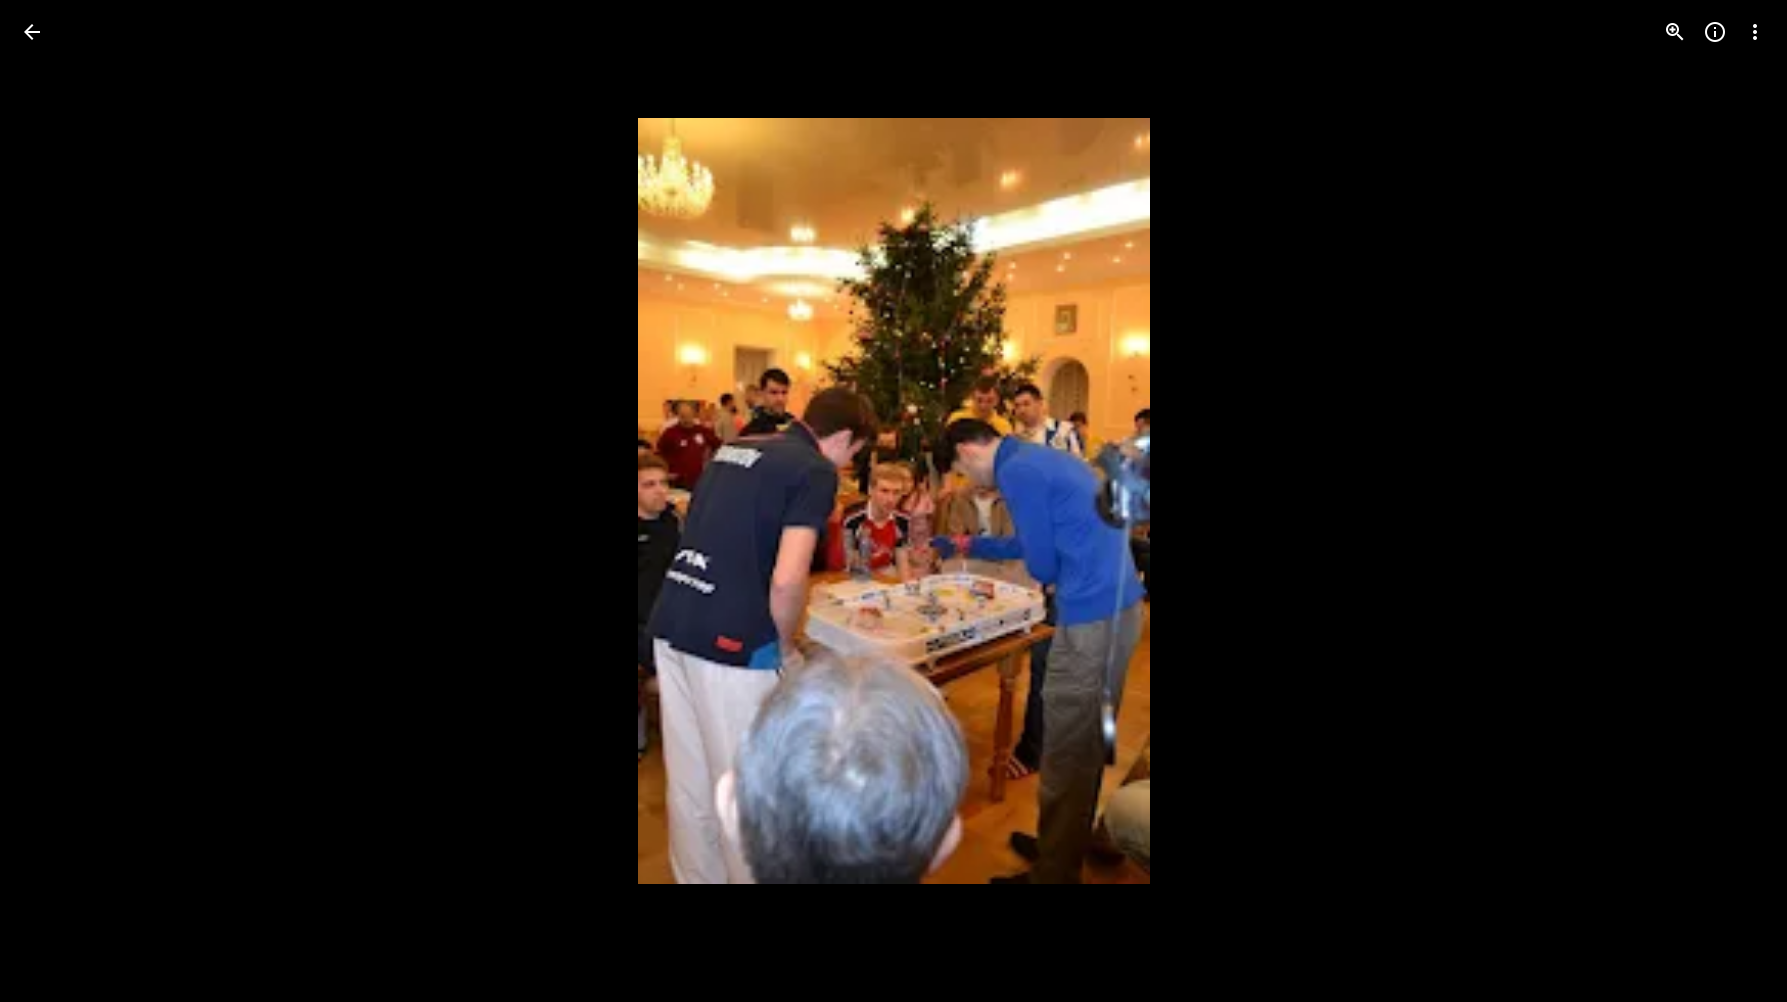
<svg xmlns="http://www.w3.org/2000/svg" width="1787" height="1002">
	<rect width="100%" height="100%" fill="#000000" />
	<image x="24" y="24" width="16" height="16" href="assets/img1.png" />
	<image x="1666" y="23" width="18" height="18" href="assets/img2.png" />
	<image x="1705" y="22" width="20" height="20" href="assets/img3.png" />
	<image x="1753" y="24" width="4" height="16" href="assets/img4.png" />
	<image x="638" y="118" width="512" height="766" href="assets/img5.png" />
</svg>
